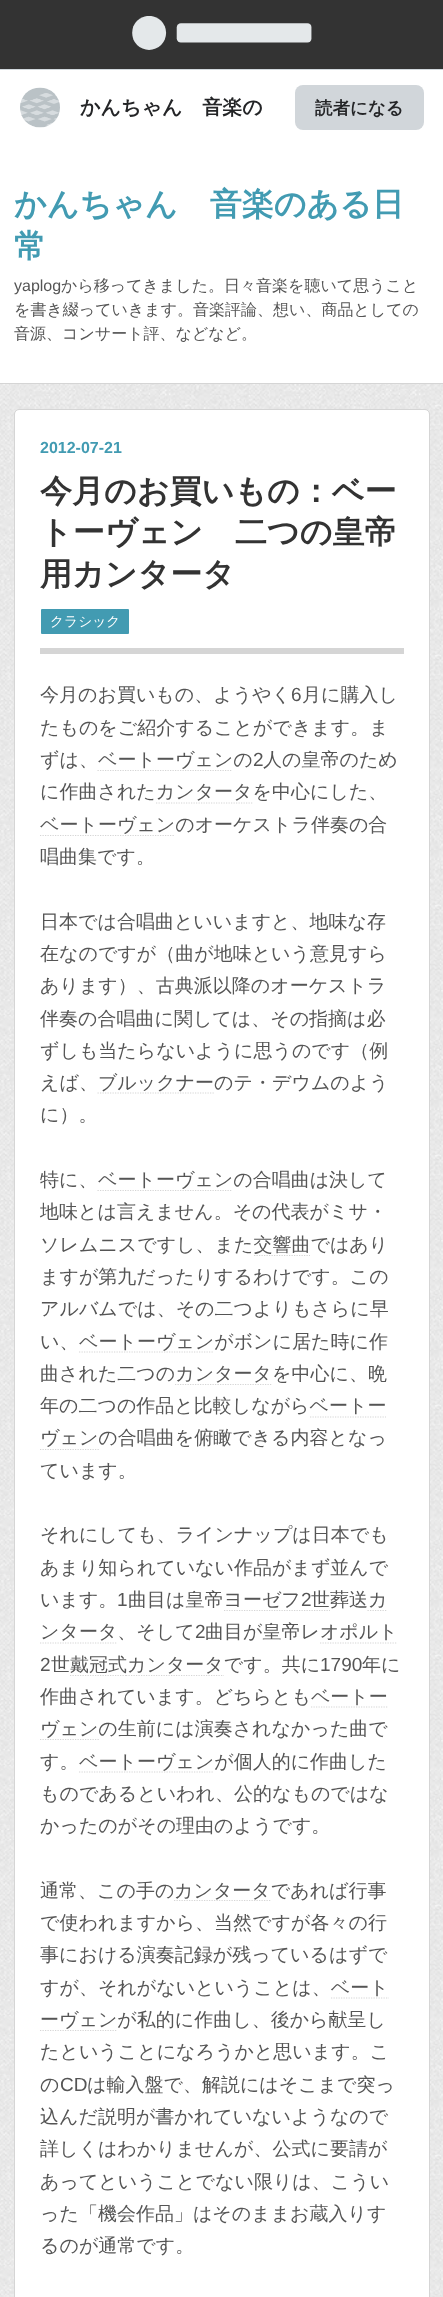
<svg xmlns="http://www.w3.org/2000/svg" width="443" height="2297">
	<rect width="100%" height="100%" fill="#FFFFFF" />
	<image x="0" y="384" width="443" height="1913" href="assets/img1.png" />
	<rect x="0" y="0" width="443" height="69" fill="#333333" />
	<rect x="0" y="69" width="443" height="1" fill="#D2D8DD" />
	<image x="132" y="16" width="180" height="34" href="assets/img2.png" />
	<image x="20" y="87" width="40" height="41" href="assets/img3.png" />
	<text x="80" y="114" font-family="WenQuanYi Zen Hei" font-size="20" font-weight="700" fill="#242527">かんちゃん　音楽の</text>
	<rect x="295" y="85" width="129" height="45" rx="8" fill="#D1D6DA" />
	<text x="315" y="114" font-family="WenQuanYi Zen Hei" font-size="17.5" font-weight="700" fill="#242527">読者になる</text>
	<rect x="0" y="383" width="443" height="1" fill="#D5D5D5" />
	<g font-family="WenQuanYi Zen Hei" font-size="32" font-weight="700" fill="#429BB2">
		<text x="14" y="215">かんちゃん　音楽のある日</text>
		<text x="14" y="257">常</text>
	</g>
	<text x="14" y="291" font-family="Liberation Sans" font-size="16" fill="#555555">yaplog</text>
	<g font-family="WenQuanYi Zen Hei" font-size="16" font-weight="500" fill="#555555">
		<text x="61" y="291">から移ってきました。日々音楽を聴いて思うこと</text>
		<text x="14" y="315">を書き綴っていきます。音楽評論、想い、商品としての</text>
		<text x="14" y="339">音源、コンサート評、などなど。</text>
	</g>
	<rect x="15" y="410" width="414" height="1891" rx="4" fill="#FFFFFF" />
	<rect x="14.5" y="409.5" width="415" height="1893" rx="4.5" fill="none" stroke="#D5D5D5" />
	<rect x="40" y="648" width="364" height="6" fill="#D5D5D5" />
	<text x="40" y="453" font-family="Liberation Sans" font-size="16" font-weight="700" fill="#429BB2">2012-07-21</text>
	<g font-family="WenQuanYi Zen Hei" font-size="32" font-weight="700" fill="#333333">
		<text x="40" y="502">今月のお買いもの：ベー</text>
		<text x="40" y="543">トーヴェン　二つの皇帝</text>
		<text x="40" y="585">用カンタータ</text>
	</g>
	<rect x="41" y="609" width="88" height="25" rx="1" fill="#429BB2" />
	<text x="50" y="626" font-family="WenQuanYi Zen Hei" font-size="13.75" font-weight="500" fill="#FFFFFF">クラシック</text>
	<text x="40" y="701" font-family="WenQuanYi Zen Hei" font-size="19" font-weight="500" fill="#555555">今月のお買いもの、ようやく</text>
	<text x="291" y="701" font-family="Liberation Sans" font-size="19" fill="#555555">6</text>
	<g font-family="WenQuanYi Zen Hei" font-size="19" font-weight="500" fill="#555555">
		<text x="302" y="701">月に購入し</text>
		<text x="40" y="734">たものをご紹介することができます。ま</text>
		<text x="40" y="766">ずは、</text>
	</g>
	<path d="M97.5 770.5H232.5" fill="none" stroke="#D5D5D5" stroke-width="1.2" stroke-dasharray="1.25 1.25" />
	<text x="98" y="766" font-family="WenQuanYi Zen Hei" font-size="19" font-weight="500" fill="#555555">ベートーヴェンの</text>
	<text x="253" y="766" font-family="Liberation Sans" font-size="19" fill="#555555">2</text>
	<g font-family="WenQuanYi Zen Hei" font-size="19" font-weight="500" fill="#555555">
		<text x="263" y="766">人の皇帝のため</text>
		<text x="40" y="798">に作曲されたカンタータを中心にした、</text>
	</g>
	<path d="M156 803H252.5" fill="none" stroke="#D5D5D5" stroke-width="1.2" stroke-dasharray="1.25 1.25" />
	<path d="M40 835.5H175" fill="none" stroke="#D5D5D5" stroke-width="1.2" stroke-dasharray="1.25 1.25" />
	<g font-family="WenQuanYi Zen Hei" font-size="19" font-weight="500" fill="#555555">
		<text x="40" y="831">ベートーヴェンのオーケストラ伴奏の合</text>
		<text x="40" y="863">唱曲集です。</text>
		<text x="40" y="928">日本では合唱曲といいますと、地味な存</text>
		<text x="40" y="960">在なのですが（曲が地味という意見すら</text>
		<text x="40" y="992">あります）、古典派以降のオーケストラ</text>
		<text x="40" y="1025">伴奏の合唱曲に関しては、その指摘は必</text>
		<text x="40" y="1057">ずしも当たらないように思うのです（例</text>
		<text x="40" y="1089">えば、ブルックナーのテ・デウムのよう</text>
	</g>
	<path d="M97.5 1093H214" fill="none" stroke="#D5D5D5" stroke-width="1.2" stroke-dasharray="1.25 1.25" />
	<g font-family="WenQuanYi Zen Hei" font-size="19" font-weight="500" fill="#555555">
		<text x="40" y="1121">に）。</text>
		<text x="40" y="1186">特に、</text>
	</g>
	<path d="M97.5 1190.5H232.5" fill="none" stroke="#D5D5D5" stroke-width="1.2" stroke-dasharray="1.25 1.25" />
	<g font-family="WenQuanYi Zen Hei" font-size="19" font-weight="500" fill="#555555">
		<text x="98" y="1186">ベートーヴェンの合唱曲は決して</text>
		<text x="40" y="1218">地味とは言えません。その代表がミサ・</text>
		<text x="40" y="1251">ソレムニスですし、また交響曲ではあり</text>
	</g>
	<path d="M254 1255.5H310" fill="none" stroke="#D5D5D5" stroke-width="1.2" stroke-dasharray="1.25 1.25" />
	<g font-family="WenQuanYi Zen Hei" font-size="19" font-weight="500" fill="#555555">
		<text x="40" y="1283">ますが第九だったりするわけです。この</text>
		<text x="40" y="1315">アルバムでは、その二つよりもさらに早</text>
		<text x="40" y="1348">い、</text>
	</g>
	<path d="M79 1352H214" fill="none" stroke="#D5D5D5" stroke-width="1.2" stroke-dasharray="1.25 1.25" />
	<g font-family="WenQuanYi Zen Hei" font-size="19" font-weight="500" fill="#555555">
		<text x="79" y="1348">ベートーヴェンがボンに居た時に作</text>
		<text x="40" y="1380">曲された二つのカンタータを中心に、晩</text>
	</g>
	<path d="M175 1384.5H272.5" fill="none" stroke="#D5D5D5" stroke-width="1.2" stroke-dasharray="1.25 1.25" />
	<g font-family="WenQuanYi Zen Hei" font-size="19" font-weight="500" fill="#555555">
		<text x="40" y="1412">年の二つの作品と比較しながらベートー</text>
		<text x="40" y="1444">ヴェンの合唱曲を俯瞰できる内容となっ</text>
	</g>
	<path d="M310 1417H386" fill="none" stroke="#D5D5D5" stroke-width="1.2" stroke-dasharray="1.25 1.25" />
	<path d="M40 1449.5H99" fill="none" stroke="#D5D5D5" stroke-width="1.2" stroke-dasharray="1.25 1.25" />
	<g font-family="WenQuanYi Zen Hei" font-size="19" font-weight="500" fill="#555555">
		<text x="40" y="1477">ています。</text>
		<text x="40" y="1541">それにしても、ラインナップは日本でも</text>
		<text x="40" y="1574">あまり知られていない作品がまず並んで</text>
		<text x="40" y="1606">います。</text>
	</g>
	<text x="117" y="1606" font-family="Liberation Sans" font-size="19" fill="#555555">1</text>
	<text x="128" y="1606" font-family="WenQuanYi Zen Hei" font-size="19" font-weight="500" fill="#555555">曲目は皇帝ヨーゼフ</text>
	<text x="301" y="1606" font-family="Liberation Sans" font-size="19" fill="#555555">2</text>
	<text x="311" y="1606" font-family="WenQuanYi Zen Hei" font-size="19" font-weight="500" fill="#555555">世葬送カ</text>
	<path d="M224 1610.5H330" fill="none" stroke="#D5D5D5" stroke-width="1.2" stroke-dasharray="1.25 1.25" />
	<text x="40" y="1638" font-family="WenQuanYi Zen Hei" font-size="19" font-weight="500" fill="#555555">ンタータ、そして</text>
	<path d="M367.5 1610.5H387.5" fill="none" stroke="#D5D5D5" stroke-width="1.2" stroke-dasharray="1.25 1.25" />
	<path d="M40 1643H117.5" fill="none" stroke="#D5D5D5" stroke-width="1.2" stroke-dasharray="1.25 1.25" />
	<text x="195" y="1638" font-family="Liberation Sans" font-size="19" fill="#555555">2</text>
	<text x="205" y="1638" font-family="WenQuanYi Zen Hei" font-size="19" font-weight="500" fill="#555555">曲目が皇帝レオポルト</text>
	<path d="M320 1643H397.5" fill="none" stroke="#D5D5D5" stroke-width="1.2" stroke-dasharray="1.25 1.25" />
	<text x="40" y="1671" font-family="Liberation Sans" font-size="19" fill="#555555">2</text>
	<text x="51" y="1671" font-family="WenQuanYi Zen Hei" font-size="19" font-weight="500" fill="#555555">世戴冠式カンタータです。共に</text>
	<text x="320" y="1671" font-family="Liberation Sans" font-size="19" fill="#555555">1790</text>
	<text x="362" y="1671" font-family="WenQuanYi Zen Hei" font-size="19" font-weight="500" fill="#555555">年に</text>
	<path d="M70 1675.5H126" fill="none" stroke="#D5D5D5" stroke-width="1.2" stroke-dasharray="1.25 1.25" />
	<path d="M126 1675.5H224" fill="none" stroke="#D5D5D5" stroke-width="1.2" stroke-dasharray="1.25 1.25" />
	<text x="40" y="1703" font-family="WenQuanYi Zen Hei" font-size="19" font-weight="500" fill="#555555">作曲されています。どちらともベートー</text>
	<path d="M40 1739.5H99" fill="none" stroke="#D5D5D5" stroke-width="1.2" stroke-dasharray="1.25 1.25" />
	<text x="40" y="1735" font-family="WenQuanYi Zen Hei" font-size="19" font-weight="500" fill="#555555">ヴェンの生前には演奏されなかった曲で</text>
	<path d="M311 1707H387.5" fill="none" stroke="#D5D5D5" stroke-width="1.2" stroke-dasharray="1.25 1.25" />
	<text x="40" y="1768" font-family="WenQuanYi Zen Hei" font-size="19" font-weight="500" fill="#555555">す。</text>
	<path d="M79 1772H214" fill="none" stroke="#D5D5D5" stroke-width="1.2" stroke-dasharray="1.25 1.25" />
	<g font-family="WenQuanYi Zen Hei" font-size="19" font-weight="500" fill="#555555">
		<text x="79" y="1768">ベートーヴェンが個人的に作曲した</text>
		<text x="40" y="1800">ものであるといわれ、公的なものではな</text>
		<text x="40" y="1832">かったのがその理由のようです。</text>
		<text x="40" y="1897">通常、この手の</text>
	</g>
	<path d="M174 1900.5H271" fill="none" stroke="#D5D5D5" stroke-width="1.2" stroke-dasharray="1.25 1.25" />
	<g font-family="WenQuanYi Zen Hei" font-size="19" font-weight="500" fill="#555555">
		<text x="174" y="1897">カンタータであれば行事</text>
		<text x="40" y="1929">で使われますから、当然ですが各々の行</text>
		<text x="40" y="1961">事における演奏記録が残っているはずで</text>
		<text x="40" y="1994">すが、それがないということは、ベート</text>
	</g>
	<path d="M40 2030.5H117.5" fill="none" stroke="#D5D5D5" stroke-width="1.2" stroke-dasharray="1.25 1.25" />
	<text x="40" y="2026" font-family="WenQuanYi Zen Hei" font-size="19" font-weight="500" fill="#555555">ーヴェンが私的に作曲し、後から献呈し</text>
	<path d="M331 1998H389" fill="none" stroke="#D5D5D5" stroke-width="1.2" stroke-dasharray="1.25 1.25" />
	<g font-family="WenQuanYi Zen Hei" font-size="19" font-weight="500" fill="#555555">
		<text x="40" y="2058">たということになろうかと思います。こ</text>
		<text x="40" y="2091">の</text>
	</g>
	<text x="60" y="2091" font-family="Liberation Sans" font-size="19" fill="#555555">CD</text>
	<g font-family="WenQuanYi Zen Hei" font-size="19" font-weight="500" fill="#555555">
		<text x="87" y="2091">は輸入盤で、解説にはそこまで突っ</text>
		<text x="40" y="2123">込んだ説明が書かれていないようなので</text>
		<text x="40" y="2155">詳しくはわかりませんが、公式に要請が</text>
		<text x="40" y="2188">あってということでない限りは、こうい</text>
		<text x="40" y="2220">った「機会作品」はそのままお蔵入りす</text>
		<text x="40" y="2252">るのが通常です。</text>
	</g>
</svg>
